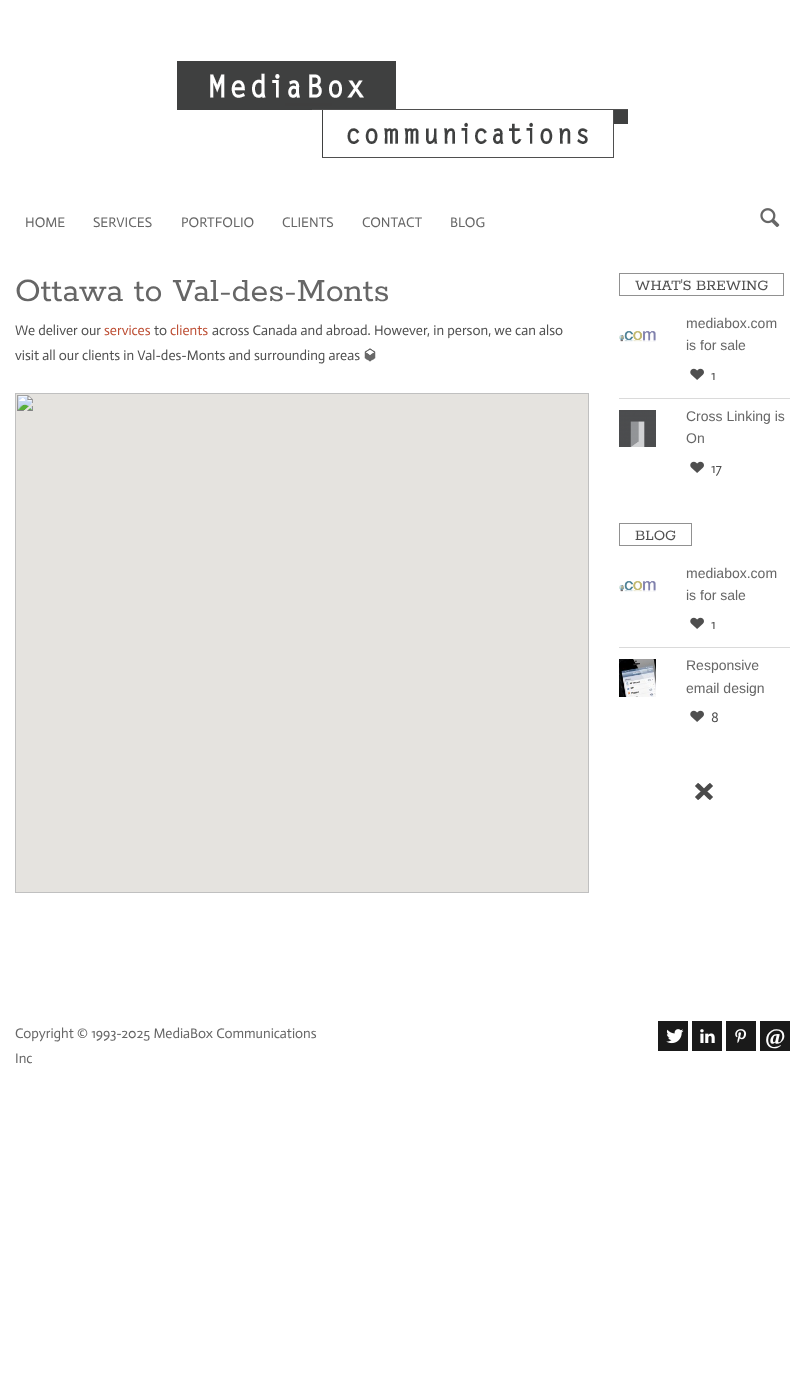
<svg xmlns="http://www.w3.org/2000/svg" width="805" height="1393">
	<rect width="100%" height="100%" fill="#FFFFFF" />
	<image x="177" y="61" width="451" height="97" href="assets/img1.png" />
	<g font-family="Actor" font-size="14" fill="#666666">
		<text x="25" y="227">HOME</text>
		<text x="93" y="227">SERVICES</text>
		<text x="181" y="227">PORTFOLIO</text>
		<text x="282" y="227">CLIENTS</text>
		<text x="362" y="227">CONTACT</text>
		<text x="450" y="227">BLOG</text>
	</g>
	<image x="760" y="208" width="20" height="19" href="assets/img2.png" />
	<text x="15" y="301" font-family="Rokkitt" font-size="36" font-weight="600" fill="#666666">Ottawa to Val-des-Monts</text>
	<text x="15" y="335" font-family="Actor" font-size="14" fill="#4F4F4F">We deliver our</text>
	<text x="104" y="335" font-family="Actor" font-size="14" fill="#BD4E34">services</text>
	<text x="154" y="335" font-family="Actor" font-size="14" fill="#4F4F4F">to</text>
	<text x="170" y="335" font-family="Actor" font-size="14" fill="#BD4E34">clients</text>
	<g font-family="Actor" font-size="14" fill="#4F4F4F">
		<text x="212" y="335">across Canada and abroad. However, in person, we can also</text>
		<text x="15" y="360">visit all our clients in Val-des-Monts and surrounding areas</text>
	</g>
	<image x="364" y="348" width="12" height="14" href="assets/img3.png" />
	<image x="15" y="393" width="574" height="500" href="assets/img4.png" />
	<rect x="619.5" y="273.5" width="164" height="22" fill="none" stroke="#919191" />
	<text x="635" y="290" font-family="Rokkitt" font-size="16" font-weight="600" fill="#4F4F4F">WHAT'S BREWING</text>
	<rect x="619" y="398" width="171" height="1" fill="#DADADA" />
	<image x="619" y="331" width="37" height="11" href="assets/img5.png" />
	<g font-family="Liberation Sans" font-size="14" fill="#666666">
		<text x="686" y="328">mediabox.com</text>
		<text x="686" y="350">is for sale</text>
	</g>
	<image x="690" y="368" width="14" height="12" href="assets/img6.png" />
	<text x="711" y="380" font-family="Actor" font-size="14" fill="#4F4F4F">1</text>
	<image x="619" y="410" width="37" height="37" href="assets/img7.png" />
	<g font-family="Liberation Sans" font-size="14" fill="#666666">
		<text x="686" y="421">Cross Linking is</text>
		<text x="686" y="443">On</text>
	</g>
	<image x="690" y="461" width="14" height="12" href="assets/img6.png" />
	<text x="711" y="473" font-family="Actor" font-size="14" fill="#4F4F4F">17</text>
	<rect x="619.5" y="523.5" width="72" height="22" fill="none" stroke="#919191" />
	<text x="635" y="540" font-family="Rokkitt" font-size="16" font-weight="600" fill="#4F4F4F">BLOG</text>
	<rect x="619" y="647" width="171" height="1" fill="#DADADA" />
	<image x="619" y="581" width="37" height="11" href="assets/img5.png" />
	<g font-family="Liberation Sans" font-size="14" fill="#666666">
		<text x="686" y="578">mediabox.com</text>
		<text x="686" y="600">is for sale</text>
	</g>
	<image x="690" y="617" width="14" height="12" href="assets/img6.png" />
	<text x="711" y="629" font-family="Actor" font-size="14" fill="#4F4F4F">1</text>
	<image x="619" y="659" width="37" height="38" href="assets/img8.png" />
	<g font-family="Liberation Sans" font-size="14" fill="#666666">
		<text x="686" y="670">Responsive</text>
		<text x="686" y="693">email design</text>
	</g>
	<image x="690" y="710" width="14" height="12" href="assets/img6.png" />
	<text x="711" y="722" font-family="Actor" font-size="14" fill="#4F4F4F">8</text>
	<image x="695" y="783" width="18" height="17" href="assets/img9.png" />
	<g font-family="Actor" font-size="14" fill="#666666">
		<text x="15" y="1038">Copyright © 1993-2025 MediaBox Communications</text>
		<text x="15" y="1063">Inc</text>
	</g>
	<rect x="658" y="1021" width="30" height="30" fill="#1A1A1A" />
	<image x="666" y="1029" width="18" height="15" href="assets/img10.png" />
	<rect x="692" y="1021" width="30" height="30" fill="#1A1A1A" />
	<image x="700" y="1029" width="15" height="14" href="assets/img11.png" />
	<rect x="726" y="1021" width="30" height="30" fill="#1A1A1A" />
	<image x="735" y="1029" width="12" height="14" href="assets/img12.png" />
	<rect x="760" y="1021" width="30" height="30" fill="#1A1A1A" />
	<text x="765" y="1044" font-family="Liberation Serif" font-size="22" font-weight="700" fill="#FFFFFF">@</text>
</svg>
